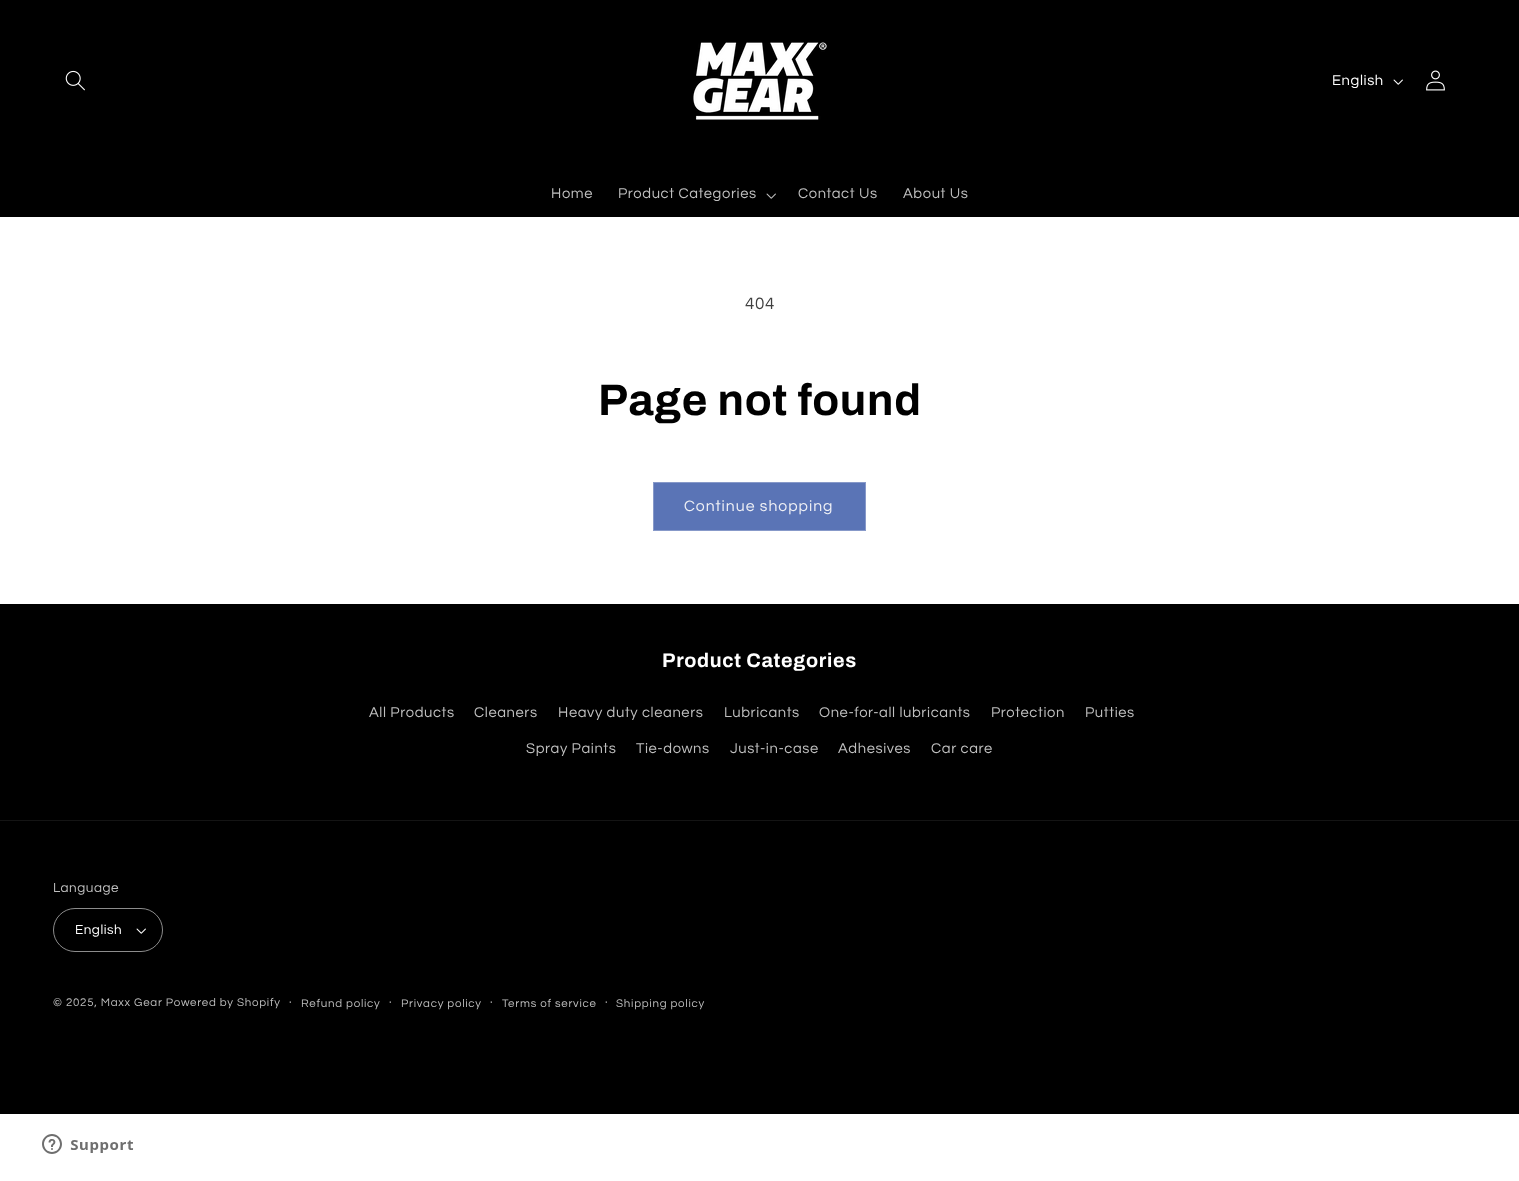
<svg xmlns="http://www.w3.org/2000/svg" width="1519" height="1181">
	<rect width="100%" height="100%" fill="#FFFFFF" />
	<rect x="0" y="0" width="1519" height="217" fill="#000000" />
	<image x="65" y="70" width="20" height="21" href="assets/img1.png" />
	<image x="693" y="42" width="134" height="78" href="assets/img2.png" />
	<text x="1332" y="85" font-family="Questrial" font-size="14.75" letter-spacing="0.6" fill="#FFFFFF">English</text>
	<image x="1393" y="79" width="10" height="6" href="assets/img3.png" />
	<image x="1426" y="70" width="19" height="21" href="assets/img4.png" />
	<g font-family="Questrial" font-size="14.75" letter-spacing="0.6" fill="#BFBFBF">
		<text x="551" y="198">Home</text>
		<text x="618" y="198">Product Categories</text>
	</g>
	<image x="766" y="193" width="10" height="6" href="assets/img5.png" />
	<g font-family="Questrial" font-size="14.75" letter-spacing="0.6" fill="#BFBFBF">
		<text x="798" y="198">Contact Us</text>
		<text x="903" y="198">About Us</text>
	</g>
	<text x="745" y="309" font-family="Questrial" font-size="17" letter-spacing="0.6" fill="#404040">404</text>
	<text x="598" y="415" font-family="Archivo" font-size="44" font-weight="700" letter-spacing="0.7" fill="#000000">Page not found</text>
	<rect x="654" y="483" width="211" height="47" fill="#5A74B6" />
	<rect x="653.5" y="482.5" width="212" height="48" fill="none" stroke="#8799C9" />
	<text x="684" y="511" font-family="Questrial" font-size="15.75" letter-spacing="1" fill="#EFF0F5">Continue shopping</text>
	<rect x="0" y="604" width="1519" height="510" fill="#000000" />
	<text x="662" y="667" font-family="Archivo" font-size="19.75" font-weight="700" letter-spacing="0.7" fill="#FFFFFF">Product Categories</text>
	<g font-family="Questrial" font-size="14.75" letter-spacing="0.6" fill="#BFBFBF">
		<text x="369" y="717">All Products</text>
		<text x="474" y="717">Cleaners</text>
		<text x="558" y="717">Heavy duty cleaners</text>
		<text x="724" y="717">Lubricants</text>
		<text x="819" y="717">One-for-all lubricants</text>
		<text x="991" y="717">Protection</text>
		<text x="1085" y="717">Putties</text>
		<text x="526" y="753">Spray Paints</text>
		<text x="636" y="753">Tie-downs</text>
		<text x="730" y="753">Just-in-case</text>
		<text x="838" y="753">Adhesives</text>
		<text x="931" y="753">Car care</text>
	</g>
	<rect x="0" y="820" width="1519" height="1" fill="#141414" />
	<text x="53" y="892" font-family="Questrial" font-size="13.5" letter-spacing="0.5" fill="#BFBFBF">Language</text>
	<image x="136" y="928" width="10" height="6" href="assets/img3.png" />
	<rect x="53.5" y="908.5" width="109" height="43" rx="21.5" fill="none" stroke="#8C8C8C" />
	<text x="75" y="934" font-family="Questrial" font-size="13.5" letter-spacing="0.5" fill="#FFFFFF">English</text>
	<text x="53" y="1006" font-family="Questrial" font-size="11.5" letter-spacing="0.75" fill="#BFBFBF">© 2025, Maxx Gear Powered by Shopify</text>
	<text x="289" y="1006" font-family="Questrial" font-size="13" letter-spacing="0.75" fill="#BFBFBF">·</text>
	<text x="301" y="1007" font-family="Questrial" font-size="11.5" letter-spacing="0.75" fill="#BFBFBF">Refund policy</text>
	<text x="389" y="1006" font-family="Questrial" font-size="13" letter-spacing="0.75" fill="#BFBFBF">·</text>
	<text x="401" y="1007" font-family="Questrial" font-size="11.5" letter-spacing="0.75" fill="#BFBFBF">Privacy policy</text>
	<text x="490" y="1006" font-family="Questrial" font-size="13" letter-spacing="0.75" fill="#BFBFBF">·</text>
	<text x="502" y="1007" font-family="Questrial" font-size="11.5" letter-spacing="0.75" fill="#BFBFBF">Terms of service</text>
	<text x="605" y="1006" font-family="Questrial" font-size="13" letter-spacing="0.75" fill="#BFBFBF">·</text>
	<text x="616" y="1007" font-family="Questrial" font-size="11.5" letter-spacing="0.75" fill="#BFBFBF">Shipping policy</text>
	<image x="42" y="1134" width="92" height="20" href="assets/img6.png" />
</svg>
